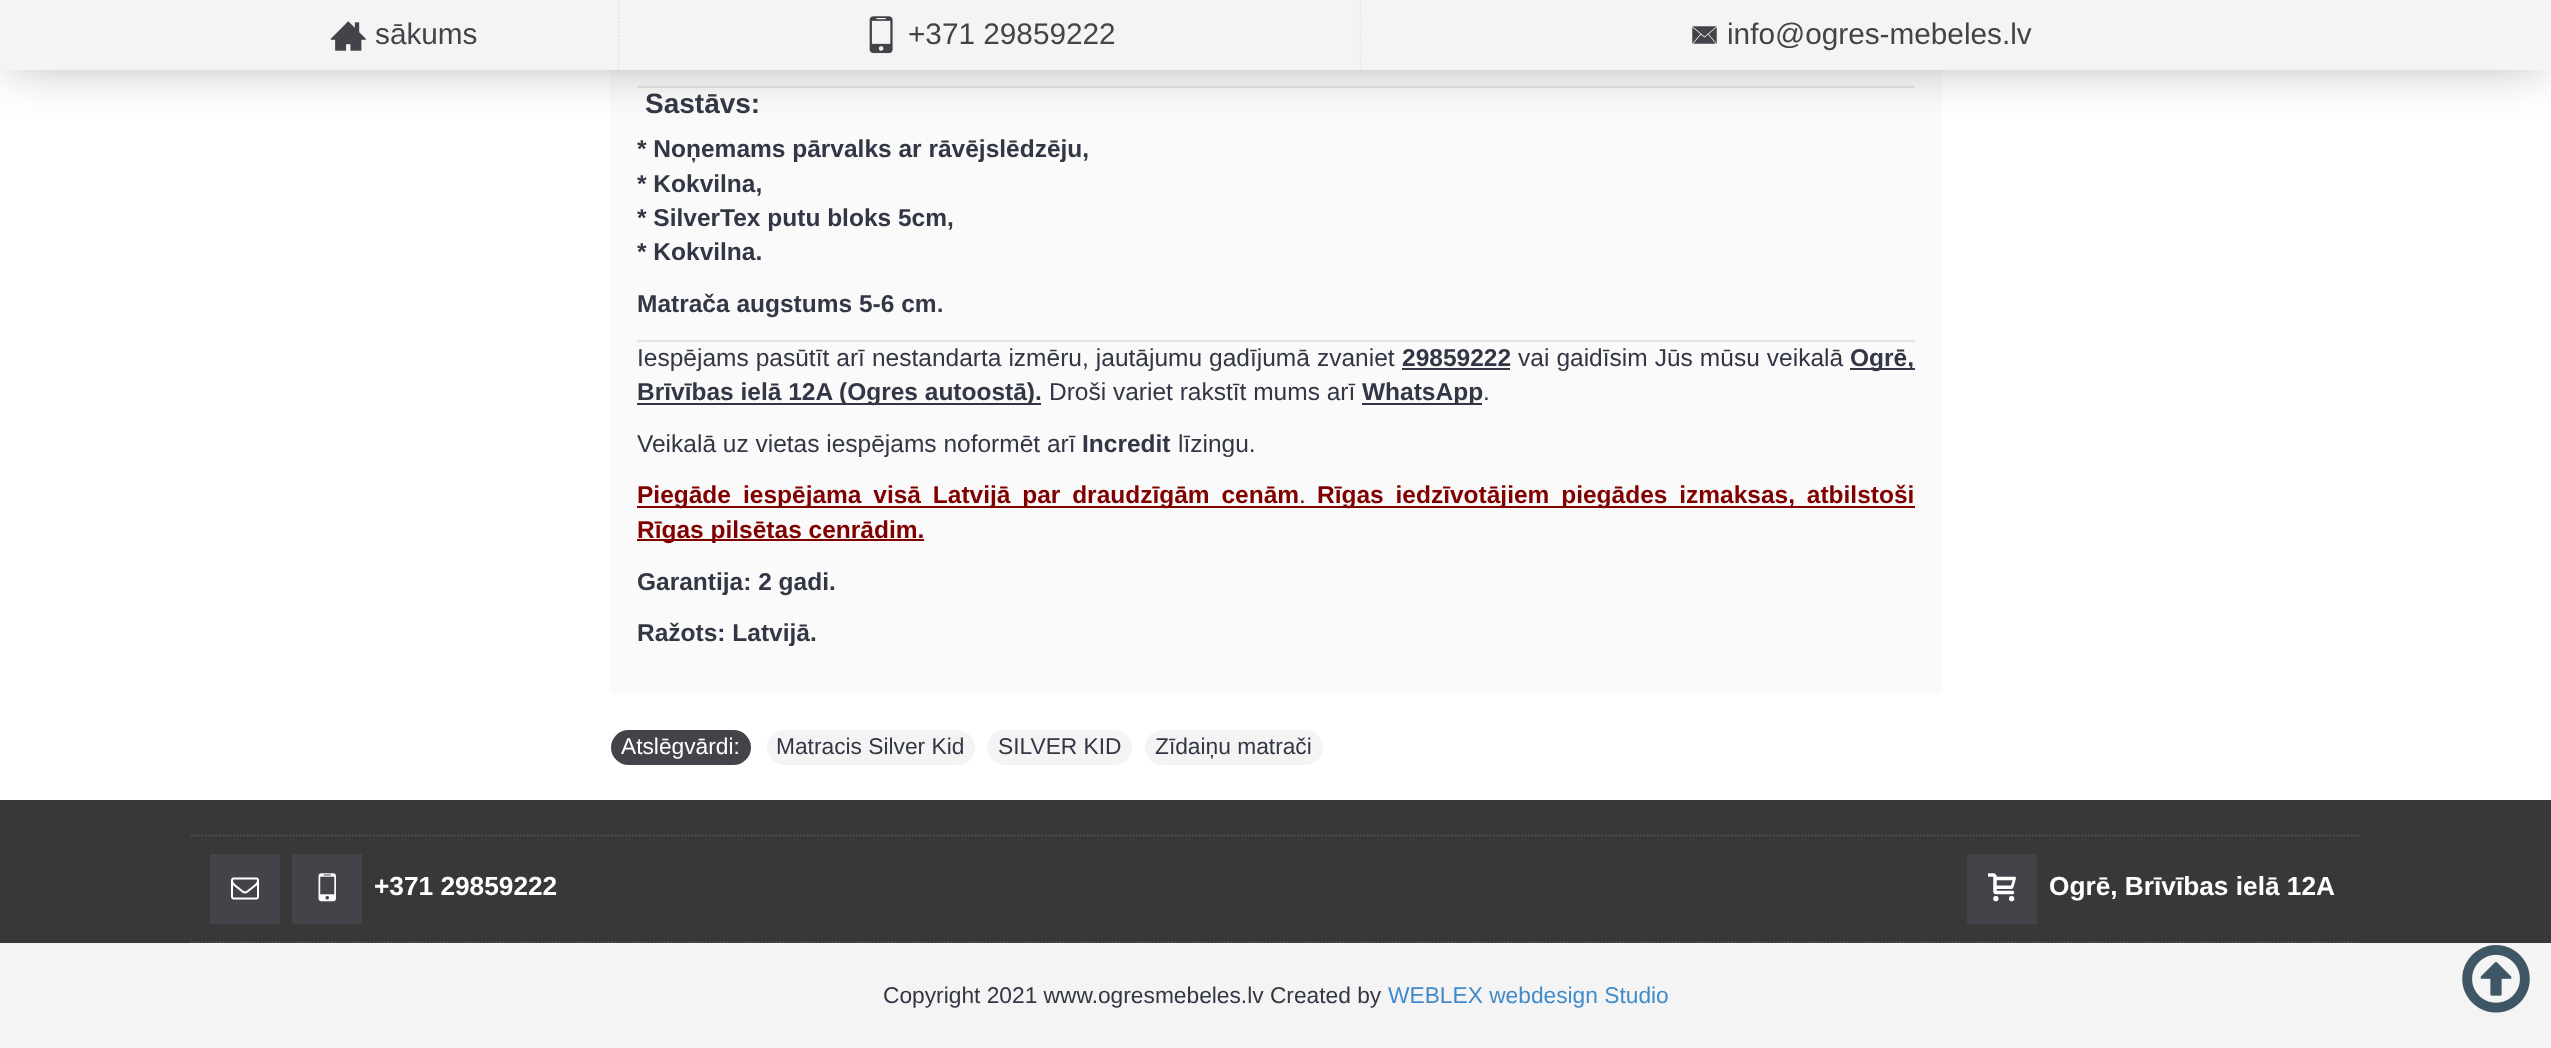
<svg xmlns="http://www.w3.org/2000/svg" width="2551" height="1048">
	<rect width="100%" height="100%" fill="#FFFFFF" />
	<path d="M611-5H1936C1939-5 1941-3 1941 0V690C1941 693 1939 695 1936 695H616C613 695 611 693 611 690Z" fill="#FAFAFA" />
	<rect x="637" y="86" width="1278" height="2" fill="#E4E4E4" />
	<rect x="9" y="11" width="2534" height="52" fill="#000000" fill-opacity="0.33" filter="blur(26px)" />
	<rect x="0" y="0" width="2551" height="70" fill="#F4F4F4" />
	<image x="330" y="21" width="36" height="30" href="assets/img1.png" />
	<text x="375" y="44" font-family="Liberation Sans" font-size="29.75" fill="#444349">sākums</text>
	<path d="M618.5 0V70" fill="none" stroke="#E4E4E4" stroke-width="1.8" stroke-dasharray="1.75 1.75" />
	<image x="869" y="16" width="24" height="38" href="assets/img2.png" />
	<text x="908" y="44" font-family="Liberation Sans" font-size="29.75" fill="#444349">+371 29859222</text>
	<path d="M1360.5 0V70" fill="none" stroke="#E4E4E4" stroke-width="1.8" stroke-dasharray="1.75 1.75" />
	<image x="1692" y="26" width="25" height="18" href="assets/img3.png" />
	<text x="1727" y="44" font-family="Liberation Sans" font-size="29.75" fill="#444349">info@ogres-mebeles.lv</text>
	<text x="645" y="113" font-family="Liberation Sans" font-size="28" font-weight="700" fill="#333745">Sastāvs:</text>
	<g font-family="Liberation Sans" font-size="24.5" font-weight="700" fill="#333745">
		<text x="637" y="157">* Noņemams pārvalks ar rāvējslēdzēju,</text>
		<text x="637" y="192">* Kokvilna,</text>
		<text x="637" y="226">* SilverTex putu bloks 5cm,</text>
		<text x="637" y="260">* Kokvilna.</text>
		<text x="637" y="312">Matrača augstums 5-6 cm</text>
	</g>
	<text x="937" y="312" font-family="Liberation Sans" font-size="22.75" font-weight="700" fill="#333745">.</text>
	<rect x="637" y="340" width="1278" height="2" fill="#E4E4E4" />
	<text x="637" y="366" word-spacing="0.25" font-family="Liberation Sans" font-size="24.5" fill="#333745">Iespējams pasūtīt arī nestandarta izmēru, jautājumu gadījumā zvaniet</text>
	<text x="1402" y="366" font-family="Liberation Sans" font-size="24.5" font-weight="700" fill="#333745">29859222</text>
	<rect x="1402" y="368" width="108" height="2" fill="#333745" />
	<text x="1518" y="366" word-spacing="0.25" font-family="Liberation Sans" font-size="24.5" fill="#333745">vai gaidīsim Jūs mūsu veikalā</text>
	<rect x="1850" y="368" width="65" height="2" fill="#333745" />
	<text x="1850" y="366" font-family="Liberation Sans" font-size="24.5" font-weight="700" fill="#333745">Ogrē,</text>
	<rect x="637" y="403" width="404" height="2" fill="#333745" />
	<text x="637" y="400" font-family="Liberation Sans" font-size="24.5" font-weight="700" fill="#333745">Brīvības ielā 12A (Ogres autoostā).</text>
	<text x="1049" y="400" font-family="Liberation Sans" font-size="24.5" fill="#333745">Droši variet rakstīt mums arī</text>
	<rect x="1362" y="403" width="120" height="2" fill="#333745" />
	<text x="1362" y="400" font-family="Liberation Sans" font-size="24.5" font-weight="700" fill="#333745">WhatsApp</text>
	<g font-family="Liberation Sans" font-size="24.5" fill="#333745">
		<text x="1483" y="400">.</text>
		<text x="637" y="452">Veikalā uz vietas iespējams noformēt arī</text>
	</g>
	<text x="1082" y="452" font-family="Liberation Sans" font-size="24.5" font-weight="700" fill="#333745">Incredit</text>
	<text x="1178" y="452" font-family="Liberation Sans" font-size="24.5" fill="#333745">līzingu.</text>
	<rect x="637" y="506" width="1278" height="2" fill="#800000" />
	<g font-family="Liberation Sans" font-size="24.5" font-weight="700" fill="#800000">
		<text x="637" y="503">Piegāde</text>
		<text x="743" y="503" word-spacing="5">iespējama visā Latvijā par draudzīgām cenām</text>
	</g>
	<text x="1299" y="503" font-family="Liberation Sans" font-size="24.5" fill="#800000">.</text>
	<text x="1317" y="503" word-spacing="5" font-family="Liberation Sans" font-size="24.5" font-weight="700" fill="#800000">Rīgas iedzīvotājiem piegādes izmaksas, atbilstoši</text>
	<rect x="637" y="539" width="287" height="2" fill="#800000" />
	<text x="637" y="538" font-family="Liberation Sans" font-size="24.5" font-weight="700" fill="#800000">Rīgas pilsētas cenrādim.</text>
	<g font-family="Liberation Sans" font-size="24.5" font-weight="700" fill="#333745">
		<text x="637" y="590">Garantija: 2 gadi.</text>
		<text x="637" y="641">Ražots: Latvijā.</text>
	</g>
	<rect x="611" y="730" width="140" height="35" rx="17.5" fill="#444349" />
	<text x="621" y="754" font-family="Liberation Sans" font-size="22.75" fill="#FFFFFF">Atslēgvārdi:</text>
	<rect x="767" y="730" width="208" height="35" rx="17.5" fill="#F4F4F4" />
	<text x="776" y="754" font-family="Liberation Sans" font-size="22.75" fill="#333745">Matracis Silver Kid</text>
	<rect x="987" y="730" width="145" height="35" rx="17.5" fill="#F4F4F4" />
	<text x="998" y="754" font-family="Liberation Sans" font-size="22.75" fill="#333745">SILVER KID</text>
	<rect x="1145" y="730" width="178" height="35" rx="17.5" fill="#F4F4F4" />
	<text x="1155" y="754" font-family="Liberation Sans" font-size="22.75" fill="#333745">Zīdaiņu matrači</text>
	<rect x="0" y="800" width="2551" height="143" fill="#383838" />
	<path d="M191 835.5H2361" fill="none" stroke="#505050" stroke-width="1.8" stroke-dasharray="1.75 1.75" />
	<path d="M191 942.5H2361" fill="none" stroke="#505050" stroke-width="1.8" stroke-dasharray="1.75 1.75" />
	<rect x="210" y="854" width="70" height="70" fill="#444349" />
	<image x="231" y="877" width="28" height="23" href="assets/img4.png" />
	<rect x="292" y="854" width="70" height="70" fill="#444349" />
	<image x="318" y="873" width="18" height="29" href="assets/img5.png" />
	<text x="374" y="895" font-family="Liberation Sans" font-size="26.25" font-weight="700" fill="#FFFFFF">+371 29859222</text>
	<rect x="1967" y="854" width="70" height="70" fill="#444349" />
	<image x="1988" y="873" width="28" height="29" href="assets/img6.png" />
	<text x="2049" y="895" font-family="Liberation Sans" font-size="26.25" font-weight="700" fill="#FFFFFF">Ogrē, Brīvības ielā 12A</text>
	<rect x="0" y="943" width="2551" height="105" fill="#F4F4F4" />
	<text x="883" y="1003" font-family="Liberation Sans" font-size="22.75" fill="#333745">Copyright 2021 www.ogresmebeles.lv Created by</text>
	<text x="1388" y="1003" font-family="Liberation Sans" font-size="22.75" fill="#428BCA">WEBLEX webdesign Studio</text>
	<image x="2462" y="945" width="68" height="68" href="assets/img7.png" />
</svg>
